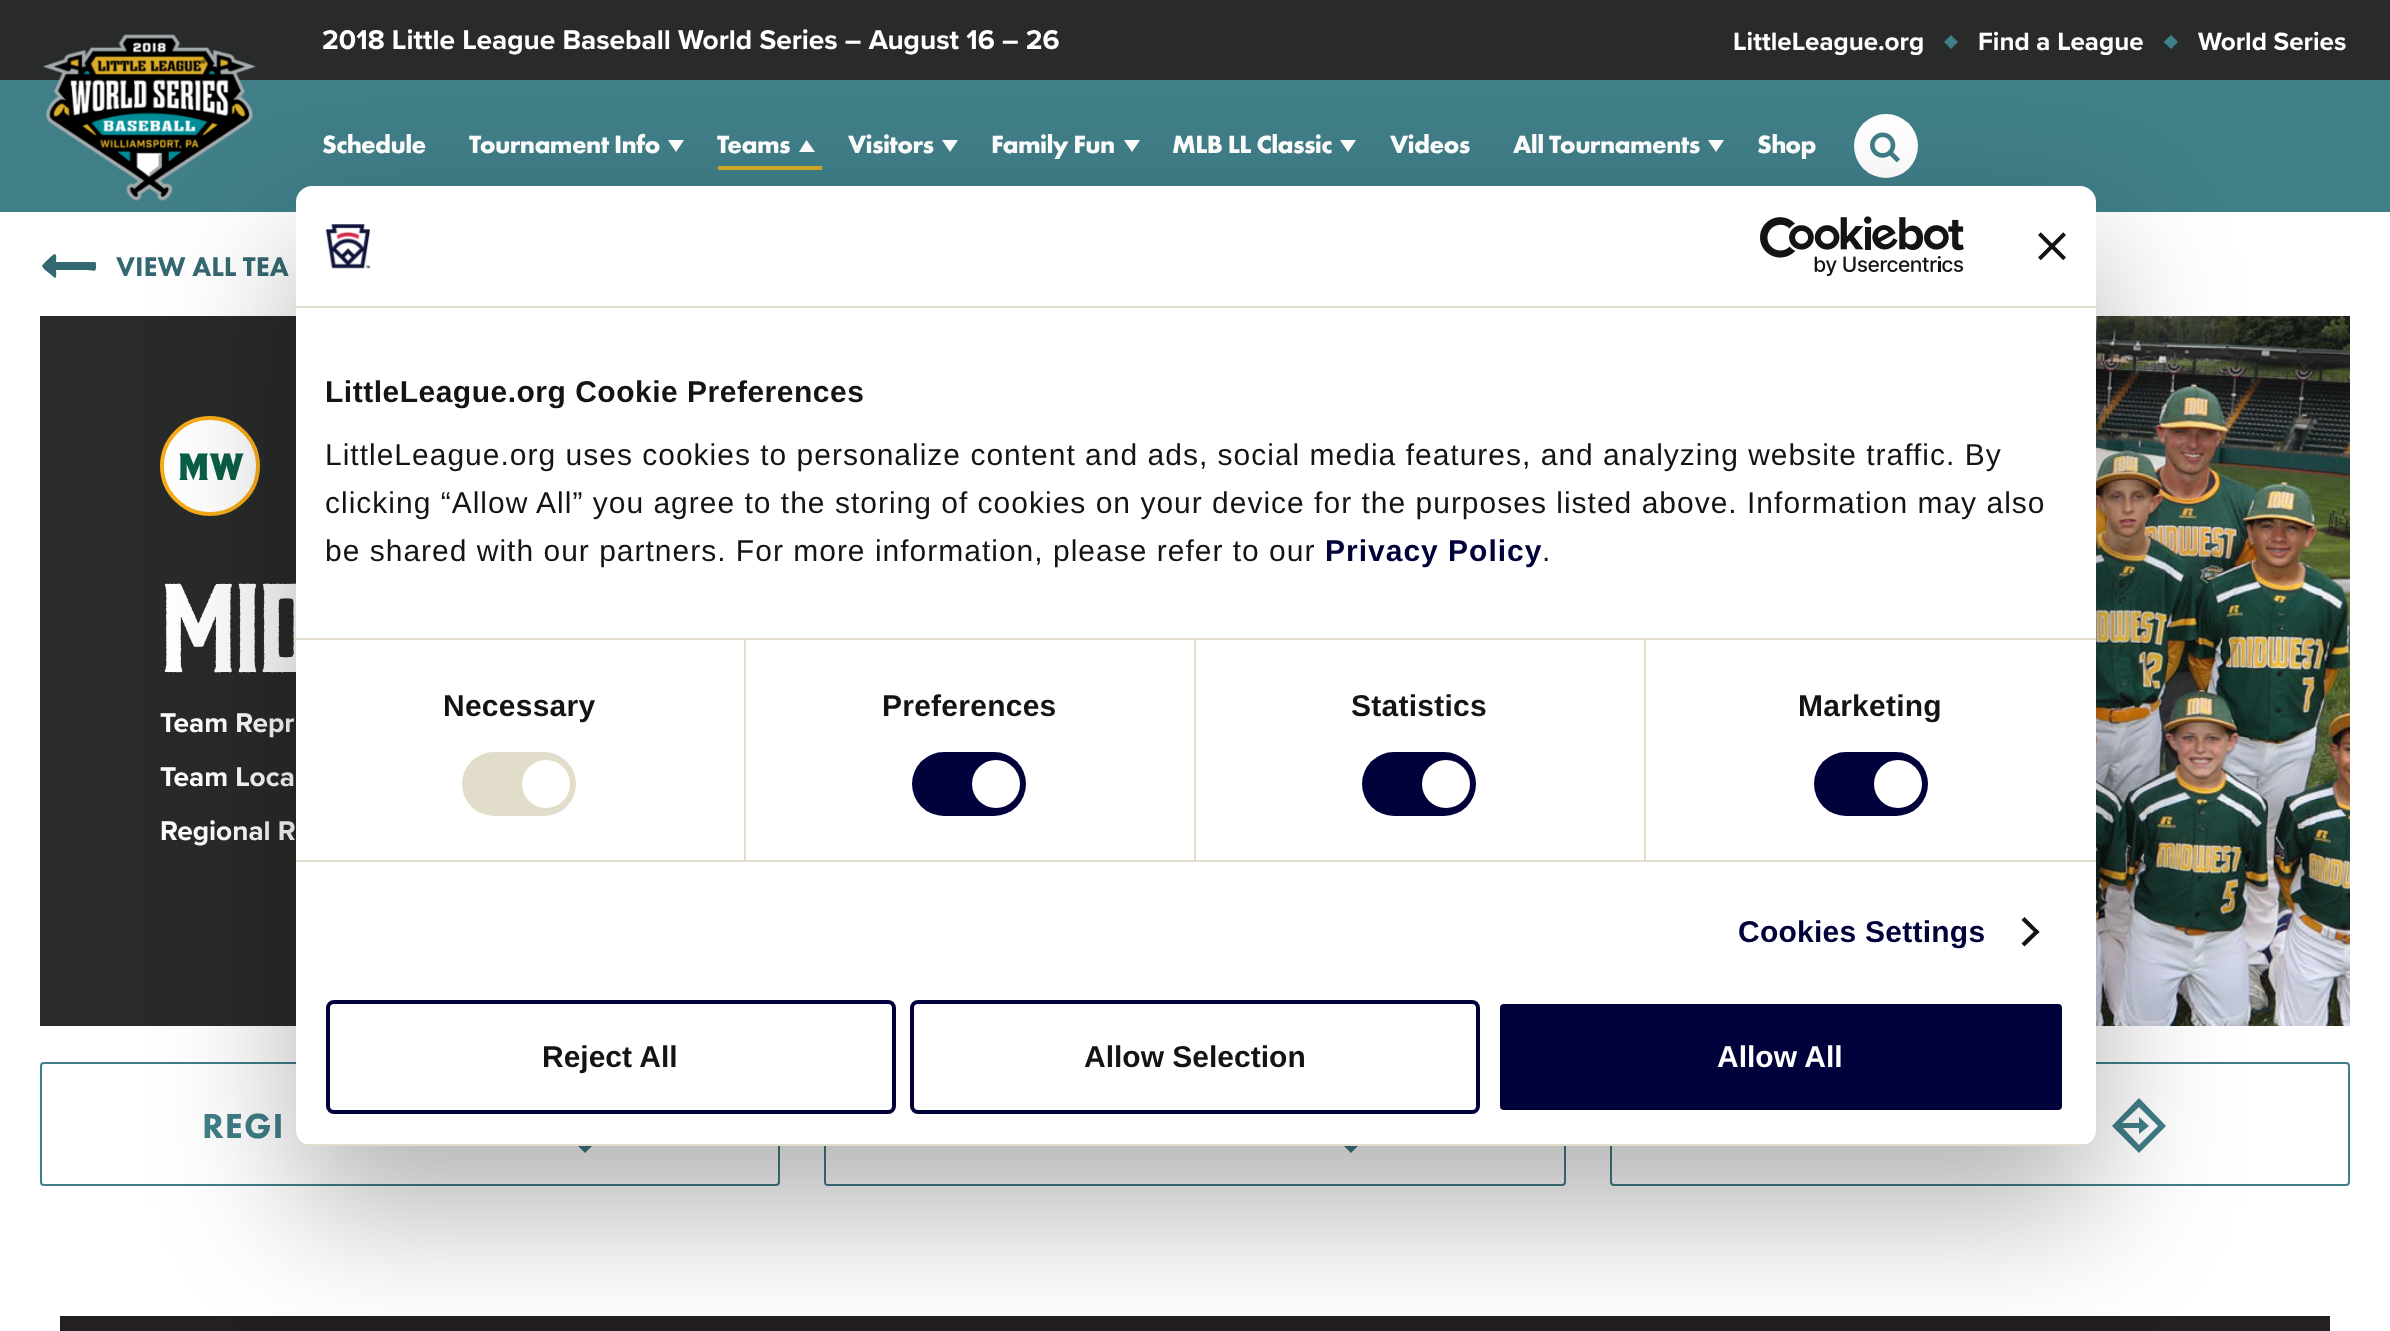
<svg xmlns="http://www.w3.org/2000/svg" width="2390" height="1331">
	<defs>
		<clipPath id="clip1"><rect x="296" y="186" width="1800" height="960" rx="16" /></clipPath>
	</defs>
	<rect width="100%" height="100%" fill="#FFFFFF" />
	<rect x="0" y="80" width="2390" height="132" fill="#407E88" />
	<rect x="0" y="0" width="2390" height="80" fill="#292B2B" />
	<text x="322" y="49" font-family="Proxima Nova" font-size="28" font-weight="700" fill="#FFFFFF">2018 Little League Baseball World Series – August 16 – 26</text>
	<text x="1733" y="50" font-family="Proxima Nova" font-size="26" font-weight="700" fill="#FFFFFF">LittleLeague.org</text>
	<path d="M1951 35L1958 42L1951 49L1944 42Z" fill="#407E88" />
	<text x="1978" y="50" font-family="Proxima Nova" font-size="26" font-weight="700" fill="#FFFFFF">Find a League</text>
	<path d="M2171 35L2178 42L2171 49L2163.5 42Z" fill="#407E88" />
	<text x="2198" y="50" font-family="Proxima Nova" font-size="26" font-weight="700" fill="#FFFFFF">World Series</text>
	<image x="42" y="34" width="214" height="167" href="assets/img1.png" />
	<g font-family="Futura PT" font-size="26" font-weight="700" letter-spacing="-0.6" fill="#FFFFFF">
		<text x="322" y="153">Schedule</text>
		<text x="469" y="153">Tournament Info</text>
	</g>
	<path d="M676 152L668 140H684Z" fill="#FFFFFF" />
	<text x="717" y="153" font-family="Futura PT" font-size="26" font-weight="700" letter-spacing="-0.6" fill="#FFFFFF">Teams</text>
	<path d="M806.5 140L815 152H799Z" fill="#FFFFFF" />
	<rect x="718" y="166" width="104" height="4" fill="#D5AB2A" />
	<text x="848" y="153" font-family="Futura PT" font-size="26" font-weight="700" letter-spacing="-0.6" fill="#FFFFFF">Visitors</text>
	<path d="M950 152L942 140H958Z" fill="#FFFFFF" />
	<text x="991" y="153" font-family="Futura PT" font-size="26" font-weight="700" letter-spacing="-0.6" fill="#FFFFFF">Family Fun</text>
	<path d="M1132 152L1124 140H1140Z" fill="#FFFFFF" />
	<text x="1172" y="153" font-family="Futura PT" font-size="26" font-weight="700" letter-spacing="-0.6" fill="#FFFFFF">MLB LL Classic</text>
	<path d="M1348 152L1340 140H1356Z" fill="#FFFFFF" />
	<g font-family="Futura PT" font-size="26" font-weight="700" letter-spacing="-0.6" fill="#FFFFFF">
		<text x="1390" y="153">Videos</text>
		<text x="1513" y="153">All Tournaments</text>
	</g>
	<path d="M1716 152L1708 140H1724Z" fill="#FFFFFF" />
	<text x="1757" y="153" font-family="Futura PT" font-size="26" font-weight="700" letter-spacing="-0.6" fill="#FFFFFF">Shop</text>
	<circle cx="1886" cy="146" r="32" fill="#FFFFFF" />
	<image x="1870" y="132" width="30" height="31" href="assets/img2.png" />
	<path d="M96 263C96 274 97 270 82 270H56C56 271 57 278 55 278L44 269L42 266C42 265 54 253 55 254C57 255 56 261 56 262H95Z" fill="#356971" />
	<text x="116" y="276" font-family="Futura PT" font-size="28" font-weight="900" fill="#356971">VIEW ALL TEA</text>
	<rect x="40" y="316" width="151" height="710" fill="#292B2B" />
	<path d="M191 316H1441L1290 1026H40Z" fill="#292B2B" />
	<circle cx="210" cy="466" r="48" fill="#FFFFFF" stroke="#F9AC19" stroke-width="4" />
	<text x="177" y="480" font-family="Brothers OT" font-size="38" font-weight="700" fill="#0A5F47">MW</text>
	<text x="160" y="672" font-family="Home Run" font-size="116" font-weight="500" letter-spacing="-3" fill="#FFFFFF">Mid</text>
	<g font-family="Proxima Nova" font-size="28" font-weight="700" fill="#FFFFFF">
		<text x="160" y="732">Team Repr</text>
		<text x="160" y="786">Team Loca</text>
		<text x="160" y="840">Regional R</text>
	</g>
	<image x="2096" y="316" width="254" height="710" href="assets/img3.png" />
	<rect x="41" y="1063" width="738" height="122" rx="3" fill="none" stroke="#407E88" stroke-width="2" />
	<text x="202" y="1138" font-family="Futura PT" font-size="36" font-weight="900" letter-spacing="1" fill="#407E88">REGI</text>
	<path d="M585 1098L558 1126L585 1153L612 1126ZM585 1145L569 1128H585V1134L595 1126L585 1117V1123H568L585 1107L604 1126Z" fill="#407E88" />
	<rect x="825" y="1063" width="740" height="122" rx="3" fill="none" stroke="#407E88" stroke-width="2" />
	<path d="M828 1064V1184C827 1184 826 1183 826 1182V1066C826 1065 827 1064 828 1064Z" fill="#FFFFFF" />
	<path d="M1351 1098L1324 1126L1351 1153L1378 1126ZM1351 1145L1335 1128H1351V1134L1361 1126L1351 1117V1123H1334L1351 1107L1370 1126Z" fill="#407E88" />
	<rect x="1611" y="1063" width="738" height="122" rx="3" fill="none" stroke="#407E88" stroke-width="2" />
	<path d="M2139 1098L2112 1126L2139 1153L2166 1126ZM2139 1145L2123 1128H2139V1134L2149 1126L2139 1117V1123H2122L2139 1107L2158 1126Z" fill="#407E88" />
	<rect x="60" y="1316" width="2270" height="15" fill="#241F20" />
	<rect x="296" y="250" width="1800" height="960" rx="16" fill="#000000" fill-opacity="0.3" filter="blur(68px)" />
	<rect x="296" y="186" width="1800" height="960" rx="16" fill="#FFFFFF" />
	<rect x="296" y="306" width="1800" height="2" fill="#E2DDCA" />
	<image x="325" y="224" width="45" height="45" href="assets/img4.png" />
	<image x="1760" y="216" width="204" height="60" href="assets/img5.png" />
	<image x="2038" y="232" width="28" height="28" href="assets/img6.png" />
	<rect x="296" y="638" width="1800" height="2" fill="#E2DDCA" />
	<text x="325" y="402" font-family="Liberation Sans" font-size="30" font-weight="700" letter-spacing="0.5" fill="#141414">LittleLeague.org Cookie Preferences</text>
	<g font-family="Liberation Sans" font-size="30" letter-spacing="1" fill="#141414">
		<text x="325" y="465">LittleLeague.org uses cookies to personalize content and ads, social media features, and analyzing website traffic. By</text>
		<text x="325" y="513">clicking “Allow All” you agree to the storing of cookies on your device for the purposes listed above. Information may also</text>
		<text x="325" y="561">be shared with our partners. For more information, please refer to our</text>
	</g>
	<text x="1325" y="561" font-family="Liberation Sans" font-size="30" font-weight="700" letter-spacing="1" fill="#00013A">Privacy Policy</text>
	<text x="1542" y="561" font-family="Liberation Sans" font-size="30" letter-spacing="1" fill="#141414">.</text>
	<rect x="296" y="860" width="1800" height="2" fill="#E2DDCA" />
	<rect x="744" y="640" width="2" height="220" fill="#E2DDCA" />
	<text x="443" y="716" font-family="Liberation Sans" font-size="30" font-weight="700" letter-spacing="0.25" fill="#141414">Necessary</text>
	<rect x="462" y="752" width="114" height="64" rx="32" fill="#E2DDCA" />
	<circle cx="546" cy="784" r="24" fill="#FFFFFF" />
	<rect x="1194" y="640" width="2" height="220" fill="#E2DDCA" />
	<text x="882" y="716" font-family="Liberation Sans" font-size="30" font-weight="700" letter-spacing="0.25" fill="#141414">Preferences</text>
	<rect x="912" y="752" width="114" height="64" rx="32" fill="#00013A" />
	<circle cx="996" cy="784" r="24" fill="#FFFFFF" />
	<rect x="1644" y="640" width="2" height="220" fill="#E2DDCA" />
	<text x="1351" y="716" font-family="Liberation Sans" font-size="30" font-weight="700" letter-spacing="0.25" fill="#141414">Statistics</text>
	<rect x="1362" y="752" width="114" height="64" rx="32" fill="#00013A" />
	<circle cx="1446" cy="784" r="24" fill="#FFFFFF" />
	<text x="1798" y="716" font-family="Liberation Sans" font-size="30" font-weight="700" letter-spacing="0.25" fill="#141414">Marketing</text>
	<rect x="1814" y="752" width="114" height="64" rx="32" fill="#00013A" />
	<circle cx="1898" cy="784" r="24" fill="#FFFFFF" />
	<text x="1738" y="942" font-family="Liberation Sans" font-size="30" font-weight="700" letter-spacing="0.25" fill="#00013A">Cookies Settings</text>
	<path d="M2024.5 917L2039.5 932L2036.5 934.5L2021.5 920Z" fill="#141414" />
	<path d="M2036.5 929L2039.5 932L2024.5 946.5L2021.5 943.5Z" fill="#141414" />
	<g clip-path="url(#clip1)">
		<rect x="296" y="1144" width="1800" height="2" fill="#E2DDCA" />
	</g>
	<rect x="328" y="1002" width="566" height="110" rx="6" fill="none" stroke="#00013A" stroke-width="4" />
	<text x="542" y="1067" font-family="Liberation Sans" font-size="30" font-weight="700" fill="#141414">Reject All</text>
	<rect x="912" y="1002" width="566" height="110" rx="6" fill="none" stroke="#00013A" stroke-width="4" />
	<text x="1084" y="1067" font-family="Liberation Sans" font-size="30" font-weight="700" fill="#141414">Allow Selection</text>
	<rect x="1498" y="1002" width="566" height="110" rx="6" fill="#00013A" stroke="#FFFFFF" stroke-width="4" />
	<text x="1717" y="1067" font-family="Liberation Sans" font-size="30" font-weight="700" fill="#FFFFFF">Allow All</text>
</svg>
